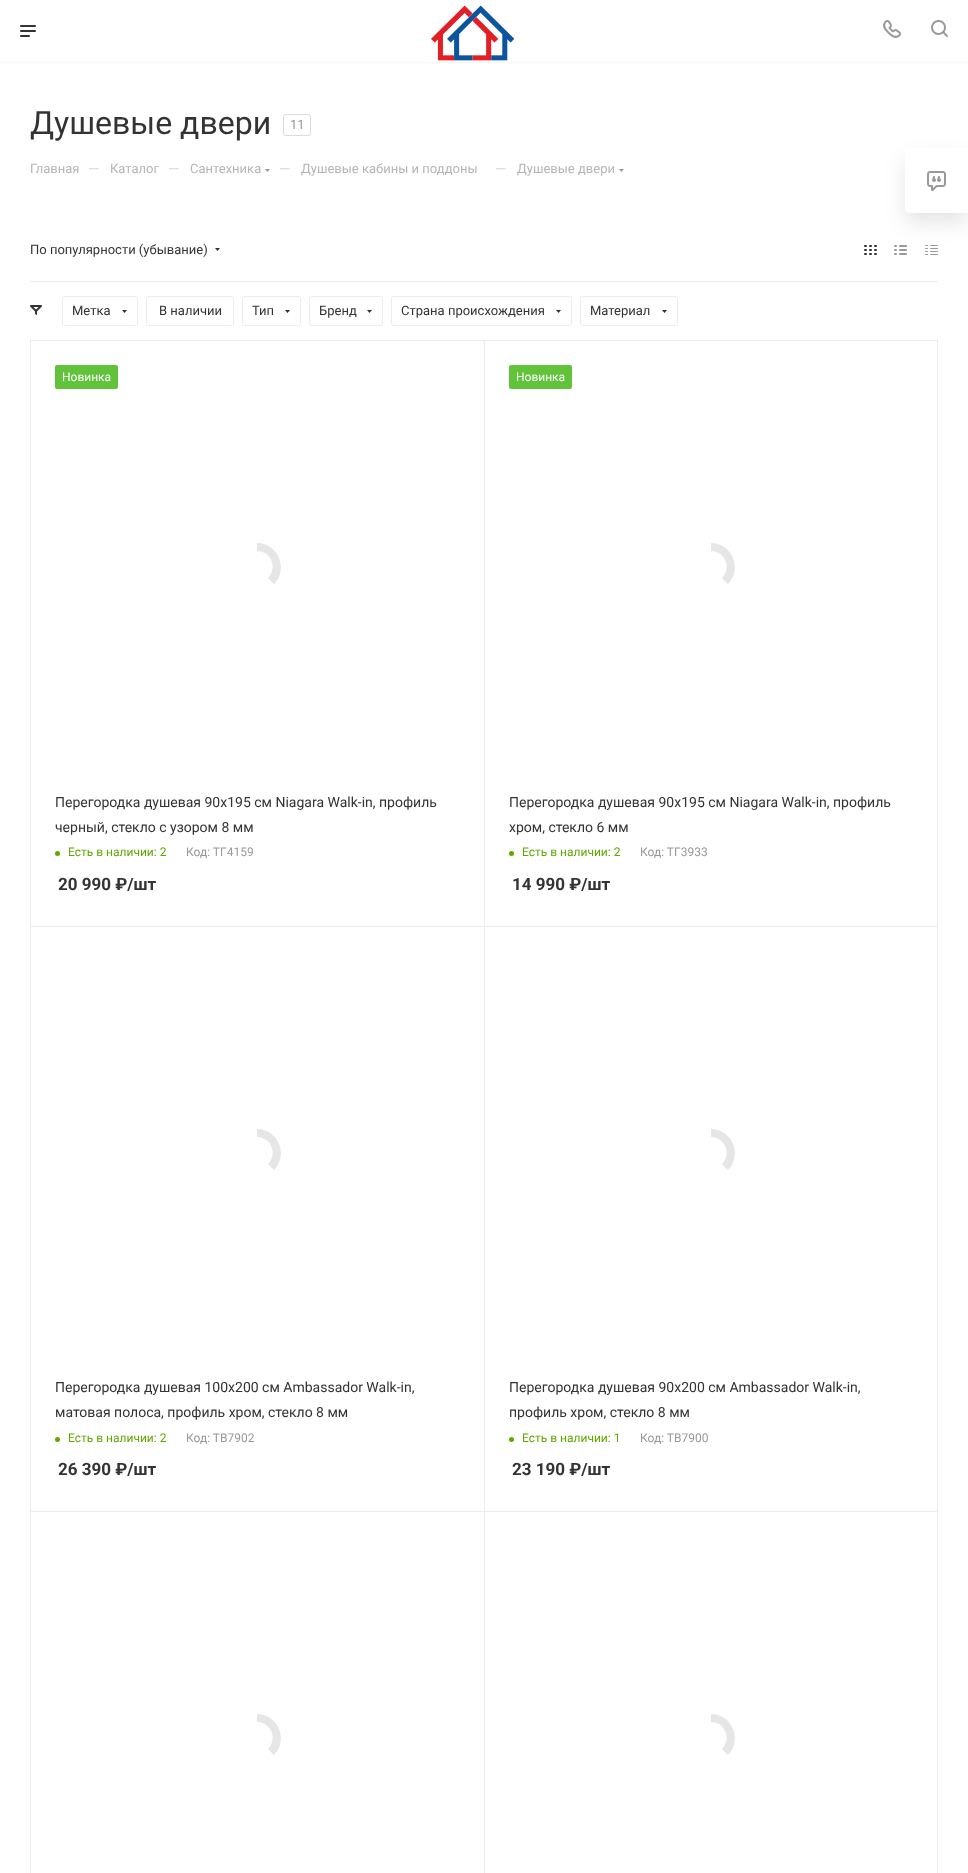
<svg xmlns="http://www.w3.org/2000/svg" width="968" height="1873">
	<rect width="100%" height="100%" fill="#FFFFFF" />
	<rect x="0" y="62" width="968" height="1" fill="#F8F8F8" />
	<image x="20" y="25" width="16" height="12" href="assets/img1.png" />
	<image x="431" y="5" width="84" height="56" href="assets/img2.png" />
	<image x="883" y="20" width="18" height="18" href="assets/img3.png" />
	<image x="931" y="20" width="17" height="17" href="assets/img4.png" />
	<text x="30" y="134" font-family="Roboto" font-size="32" fill="#333333">Душевые двери</text>
	<rect x="283.5" y="114.5" width="27" height="21" rx="2.5" fill="none" stroke="#DBDBDB" />
	<text x="290" y="129" font-family="Roboto" font-size="13" fill="#999999">11</text>
	<text x="30" y="173" font-family="Roboto" font-size="13" fill="#B6B5B5">Главная</text>
	<text x="88" y="174" font-family="Roboto" font-size="15" fill="#DDDDDD">—</text>
	<text x="110" y="173" font-family="Roboto" font-size="13" fill="#B6B5B5">Каталог</text>
	<text x="168" y="174" font-family="Roboto" font-size="15" fill="#DDDDDD">—</text>
	<text x="190" y="173" font-family="Roboto" font-size="13" fill="#B6B5B5">Сантехника</text>
	<path d="M265 169H270L267.5 172Z" fill="#999999" fill-rule="evenodd" />
	<text x="279" y="174" font-family="Roboto" font-size="15" fill="#DDDDDD">—</text>
	<text x="301" y="173" font-family="Roboto" font-size="13" fill="#B6B5B5">Душевые кабины и поддоны</text>
	<text x="495" y="174" font-family="Roboto" font-size="15" fill="#DDDDDD">—</text>
	<text x="517" y="173" font-family="Roboto" font-size="13" fill="#B6B5B5">Душевые двери</text>
	<path d="M619 169H624L621.5 172Z" fill="#999999" fill-rule="evenodd" />
	<rect x="30" y="281" width="908" height="1" fill="#ECECEC" />
	<text x="30" y="254" font-family="Roboto" font-size="13" fill="#333333">По популярности (убывание)</text>
	<path d="M215 248H220L217.5 251Z" fill="#333333" fill-rule="evenodd" />
	<image x="864" y="245" width="13" height="10" href="assets/img5.png" />
	<image x="894" y="245" width="13" height="10" href="assets/img6.png" />
	<image x="925" y="245" width="13" height="10" href="assets/img7.png" />
	<image x="30" y="305" width="12" height="10" href="assets/img8.png" />
	<rect x="62.5" y="296.5" width="75" height="29" rx="2.5" fill="none" stroke="#ECECEC" />
	<text x="72" y="315" font-family="Roboto" font-size="13" fill="#333333">Метка</text>
	<path d="M122 310H127L124.5 313Z" fill="#333333" fill-rule="evenodd" />
	<rect x="146.5" y="296.5" width="87" height="29" rx="2.5" fill="none" stroke="#ECECEC" />
	<text x="159" y="315" font-family="Roboto" font-size="13" fill="#333333">В наличии</text>
	<rect x="242.5" y="296.5" width="58" height="29" rx="2.5" fill="none" stroke="#ECECEC" />
	<text x="252" y="315" font-family="Roboto" font-size="13" fill="#333333">Тип</text>
	<path d="M285 310H290L287.5 313Z" fill="#333333" fill-rule="evenodd" />
	<rect x="309.5" y="296.5" width="73" height="29" rx="2.5" fill="none" stroke="#ECECEC" />
	<text x="319" y="315" font-family="Roboto" font-size="13" fill="#333333">Бренд</text>
	<path d="M367 310H372L369.5 313Z" fill="#333333" fill-rule="evenodd" />
	<rect x="391.5" y="296.5" width="180" height="29" rx="2.5" fill="none" stroke="#ECECEC" />
	<text x="401" y="315" font-family="Roboto" font-size="13" fill="#333333">Страна происхождения</text>
	<path d="M556 310H561L558.5 313Z" fill="#333333" fill-rule="evenodd" />
	<rect x="580.5" y="296.5" width="97" height="29" rx="2.5" fill="none" stroke="#ECECEC" />
	<text x="590" y="315" font-family="Roboto" font-size="13" fill="#333333">Материал</text>
	<path d="M662 310H667L664.5 313Z" fill="#333333" fill-rule="evenodd" />
	<rect x="30.5" y="340.5" width="454" height="586" fill="none" stroke="#ECECEC" />
	<rect x="55" y="365" width="63" height="24" rx="2" fill="#60C339" />
	<text x="62" y="381" font-family="Roboto" font-size="12" fill="#FFFFFF">Новинка</text>
	<path d="M257 543C278 543 289 569 274 584L268 578C278 568 271 551 257 551Z" fill="#E6E6E6" />
	<g font-family="Roboto" font-size="14" fill="#333333">
		<text x="55" y="807">Перегородка душевая 90х195 см Niagara Walk-in, профиль</text>
		<text x="55" y="832">черный, стекло с узором 8 мм</text>
	</g>
	<circle cx="57.5" cy="853.5" r="2.5" fill="#5FA800" />
	<text x="68" y="856" font-family="Roboto" font-size="12" fill="#5FA800">Есть в наличии: 2</text>
	<text x="186" y="856" font-family="Roboto" font-size="12" fill="#999999">Код: ТГ4159</text>
	<text x="58" y="890" font-family="Roboto" font-size="17" font-weight="700" fill="#333333">20 990 ₽/шт</text>
	<rect x="484.5" y="340.5" width="453" height="586" fill="none" stroke="#ECECEC" />
	<rect x="509" y="365" width="63" height="24" rx="2" fill="#60C339" />
	<text x="516" y="381" font-family="Roboto" font-size="12" fill="#FFFFFF">Новинка</text>
	<path d="M711 543C732 543 743 569 728 584L722 578C732 568 725 551 711 551Z" fill="#E6E6E6" />
	<g font-family="Roboto" font-size="14" fill="#333333">
		<text x="509" y="807">Перегородка душевая 90х195 см Niagara Walk-in, профиль</text>
		<text x="509" y="832">хром, стекло 6 мм</text>
	</g>
	<circle cx="511.5" cy="853.5" r="2.5" fill="#5FA800" />
	<text x="522" y="856" font-family="Roboto" font-size="12" fill="#5FA800">Есть в наличии: 2</text>
	<text x="640" y="856" font-family="Roboto" font-size="12" fill="#999999">Код: ТГ3933</text>
	<text x="512" y="890" font-family="Roboto" font-size="17" font-weight="700" fill="#333333">14 990 ₽/шт</text>
	<rect x="30.5" y="926.5" width="454" height="585" fill="none" stroke="#ECECEC" />
	<path d="M257 1129C278 1129 289 1155 274 1170L268 1164C278 1154 271 1137 257 1137Z" fill="#E6E6E6" />
	<g font-family="Roboto" font-size="14" fill="#333333">
		<text x="55" y="1392">Перегородка душевая 100х200 см Ambassador Walk-in,</text>
		<text x="55" y="1417">матовая полоса, профиль хром, стекло 8 мм</text>
	</g>
	<circle cx="57.5" cy="1439.5" r="2.5" fill="#5FA800" />
	<text x="68" y="1442" font-family="Roboto" font-size="12" fill="#5FA800">Есть в наличии: 2</text>
	<text x="186" y="1442" font-family="Roboto" font-size="12" fill="#999999">Код: ТВ7902</text>
	<text x="58" y="1475" font-family="Roboto" font-size="17" font-weight="700" fill="#333333">26 390 ₽/шт</text>
	<rect x="484.5" y="926.5" width="453" height="585" fill="none" stroke="#ECECEC" />
	<path d="M711 1129C732 1129 743 1155 728 1170L722 1164C732 1154 725 1137 711 1137Z" fill="#E6E6E6" />
	<g font-family="Roboto" font-size="14" fill="#333333">
		<text x="509" y="1392">Перегородка душевая 90х200 см Ambassador Walk-in,</text>
		<text x="509" y="1417">профиль хром, стекло 8 мм</text>
	</g>
	<circle cx="511.5" cy="1439.5" r="2.5" fill="#5FA800" />
	<text x="522" y="1442" font-family="Roboto" font-size="12" fill="#5FA800">Есть в наличии: 1</text>
	<text x="640" y="1442" font-family="Roboto" font-size="12" fill="#999999">Код: ТВ7900</text>
	<text x="512" y="1475" font-family="Roboto" font-size="17" font-weight="700" fill="#333333">23 190 ₽/шт</text>
	<rect x="30.5" y="1511.5" width="454" height="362" fill="none" stroke="#ECECEC" />
	<path d="M257 1714C278 1714 289 1740 274 1755L268 1749C278 1739 271 1722 257 1722Z" fill="#E6E6E6" />
	<rect x="484.5" y="1511.5" width="453" height="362" fill="none" stroke="#ECECEC" />
	<path d="M711 1714C732 1714 743 1740 728 1755L722 1749C732 1739 725 1722 711 1722Z" fill="#E6E6E6" />
	<rect x="905" y="158" width="63" height="65" rx="4" fill="#000000" fill-opacity="0.1" filter="blur(10px)" />
	<path d="M909 148H968V213H909C907 213 905 211 905 209V152C905 150 907 148 909 148Z" fill="#FFFFFF" />
	<image x="927" y="171" width="19" height="20" href="assets/img9.png" />
</svg>
